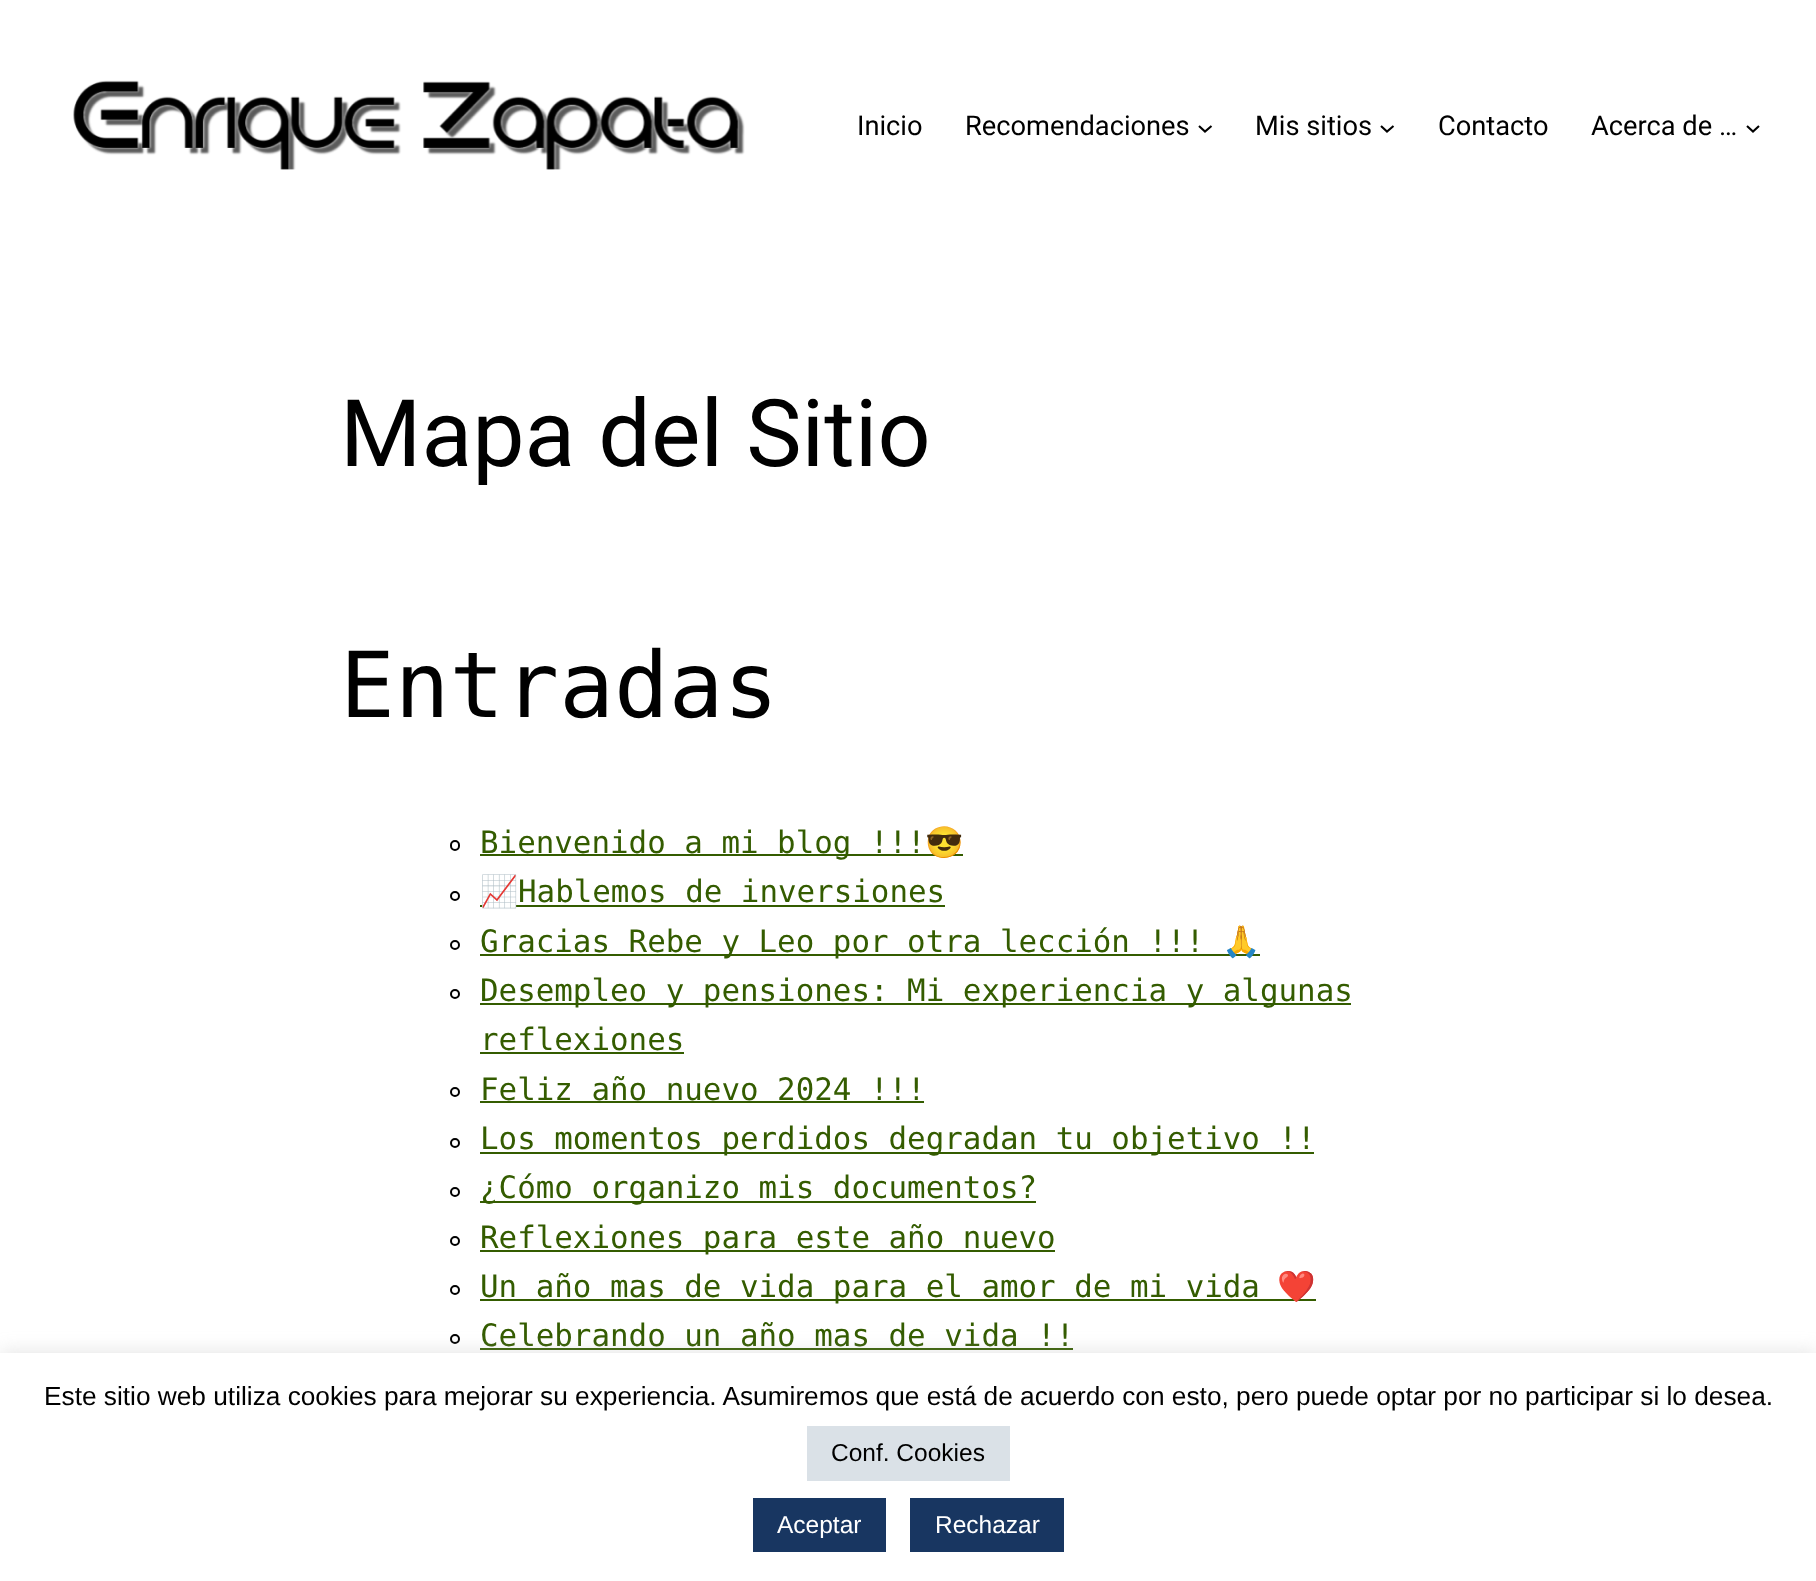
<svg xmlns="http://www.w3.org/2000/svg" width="1816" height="1581">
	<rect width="100%" height="100%" fill="#FFFFFF" />
	<image x="73" y="80" width="672" height="90" href="assets/img1.png" />
	<g font-family="Roboto" font-size="27.25" fill="#000000">
		<text x="857" y="135">Inicio</text>
		<text x="965" y="135">Recomendaciones</text>
	</g>
	<path d="M1199 126L1205 131.5L1211.5 126" fill="none" stroke="#000000" stroke-width="2.1" />
	<text x="1255" y="135" font-family="Roboto" font-size="27.25" fill="#000000">Mis sitios</text>
	<path d="M1381 126L1387 131.5L1393.5 126" fill="none" stroke="#000000" stroke-width="2.1" />
	<g font-family="Roboto" font-size="27.25" fill="#000000">
		<text x="1438" y="135">Contacto</text>
		<text x="1591" y="135">Acerca de …</text>
	</g>
	<path d="M1747 126L1753 131.5L1759 126" fill="none" stroke="#000000" stroke-width="2.1" />
	<text x="340" y="466" font-family="Roboto" font-size="93.25" fill="#000000">Mapa del Sitio</text>
	<text x="340" y="717" font-family="DejaVu Sans Mono" font-size="91" fill="#000000">Entradas</text>
	<rect x="451" y="841" width="8" height="9" rx="4" fill="none" stroke="#000000" stroke-width="2" />
	<rect x="480" y="854" width="483" height="2" fill="#345C00" />
	<text x="480" y="853" font-family="DejaVu Sans Mono" font-size="30.85" fill="#345C00">Bienvenido a mi blog !!!</text>
	<text x="925" y="853" font-family="Noto Color Emoji" font-size="30.85" fill="#345C00">😎</text>
	<circle cx="455" cy="896" r="4" fill="none" stroke="#000000" stroke-width="2" />
	<rect x="480" y="905" width="465" height="2" fill="#345C00" />
	<text x="480" y="902" font-family="Noto Color Emoji" font-size="30.85" fill="#345C00">📈</text>
	<text x="518" y="902" font-family="DejaVu Sans Mono" font-size="30.85" fill="#345C00">Hablemos de inversiones</text>
	<circle cx="455" cy="945" r="4" fill="none" stroke="#000000" stroke-width="2" />
	<rect x="480" y="954" width="780" height="2" fill="#345C00" />
	<text x="480" y="952" font-family="DejaVu Sans Mono" font-size="30.85" fill="#345C00">Gracias Rebe y Leo por otra lección !!!</text>
	<text x="1222" y="952" font-family="Noto Color Emoji" font-size="30.85" fill="#345C00">🙏</text>
	<circle cx="455" cy="994" r="4" fill="none" stroke="#000000" stroke-width="2" />
	<rect x="480" y="1003" width="871" height="2" fill="#345C00" />
	<g font-family="DejaVu Sans Mono" font-size="30.85" fill="#345C00">
		<text x="480" y="1001">Desempleo y pensiones: Mi experiencia y algunas</text>
		<text x="480" y="1050">reflexiones</text>
	</g>
	<rect x="480" y="1052" width="204" height="2" fill="#345C00" />
	<circle cx="455" cy="1092" r="4" fill="none" stroke="#000000" stroke-width="2" />
	<text x="480" y="1100" font-family="DejaVu Sans Mono" font-size="30.85" fill="#345C00">Feliz año nuevo 2024 !!!</text>
	<rect x="480" y="1101" width="444" height="2" fill="#345C00" />
	<circle cx="455" cy="1143" r="4" fill="none" stroke="#000000" stroke-width="2" />
	<rect x="480" y="1152" width="834" height="2" fill="#345C00" />
	<text x="480" y="1149" font-family="DejaVu Sans Mono" font-size="30.85" fill="#345C00">Los momentos perdidos degradan tu objetivo !!</text>
	<circle cx="455" cy="1192" r="4" fill="none" stroke="#000000" stroke-width="2" />
	<rect x="480" y="1201" width="556" height="2" fill="#345C00" />
	<text x="480" y="1198" font-family="DejaVu Sans Mono" font-size="30.85" fill="#345C00">¿Cómo organizo mis documentos?</text>
	<circle cx="455" cy="1241" r="4" fill="none" stroke="#000000" stroke-width="2" />
	<rect x="480" y="1250" width="575" height="2" fill="#345C00" />
	<text x="480" y="1248" font-family="DejaVu Sans Mono" font-size="30.85" fill="#345C00">Reflexiones para este año nuevo</text>
	<circle cx="455" cy="1290" r="4" fill="none" stroke="#000000" stroke-width="2" />
	<rect x="480" y="1299" width="836" height="2" fill="#345C00" />
	<text x="480" y="1297" font-family="DejaVu Sans Mono" font-size="30.85" fill="#345C00">Un año mas de vida para el amor de mi vida</text>
	<text x="1277" y="1297" font-family="Noto Color Emoji" font-size="30.85" fill="#345C00">❤️</text>
	<circle cx="455" cy="1339" r="4" fill="none" stroke="#000000" stroke-width="2" />
	<text x="480" y="1346" font-family="DejaVu Sans Mono" font-size="30.85" fill="#345C00">Celebrando un año mas de vida !!</text>
	<rect x="480" y="1348" width="593" height="2" fill="#345C00" />
	<rect x="0" y="1351" width="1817" height="229" fill="#ACABAB" fill-opacity="0.3" filter="blur(9px)" />
	<rect x="0" y="1353" width="1816" height="228" fill="#FFFFFF" />
	<text x="44" y="1405" font-family="Liberation Sans" font-size="26.25" fill="#000000">Este sitio web utiliza cookies para mejorar su experiencia. Asumiremos que está de acuerdo con esto, pero puede optar por no participar si lo desea.</text>
	<rect x="807" y="1426" width="203" height="55" fill="#DAE1E7" />
	<text x="831" y="1461" font-family="Liberation Sans" font-size="24.5" fill="#000000">Conf. Cookies</text>
	<rect x="753" y="1498" width="133" height="54" fill="#183661" />
	<text x="777" y="1533" font-family="Liberation Sans" font-size="24.5" fill="#FFFFFF">Aceptar</text>
	<rect x="910" y="1498" width="154" height="54" fill="#183661" />
	<text x="935" y="1533" font-family="Liberation Sans" font-size="24.5" fill="#FFFFFF">Rechazar</text>
</svg>
